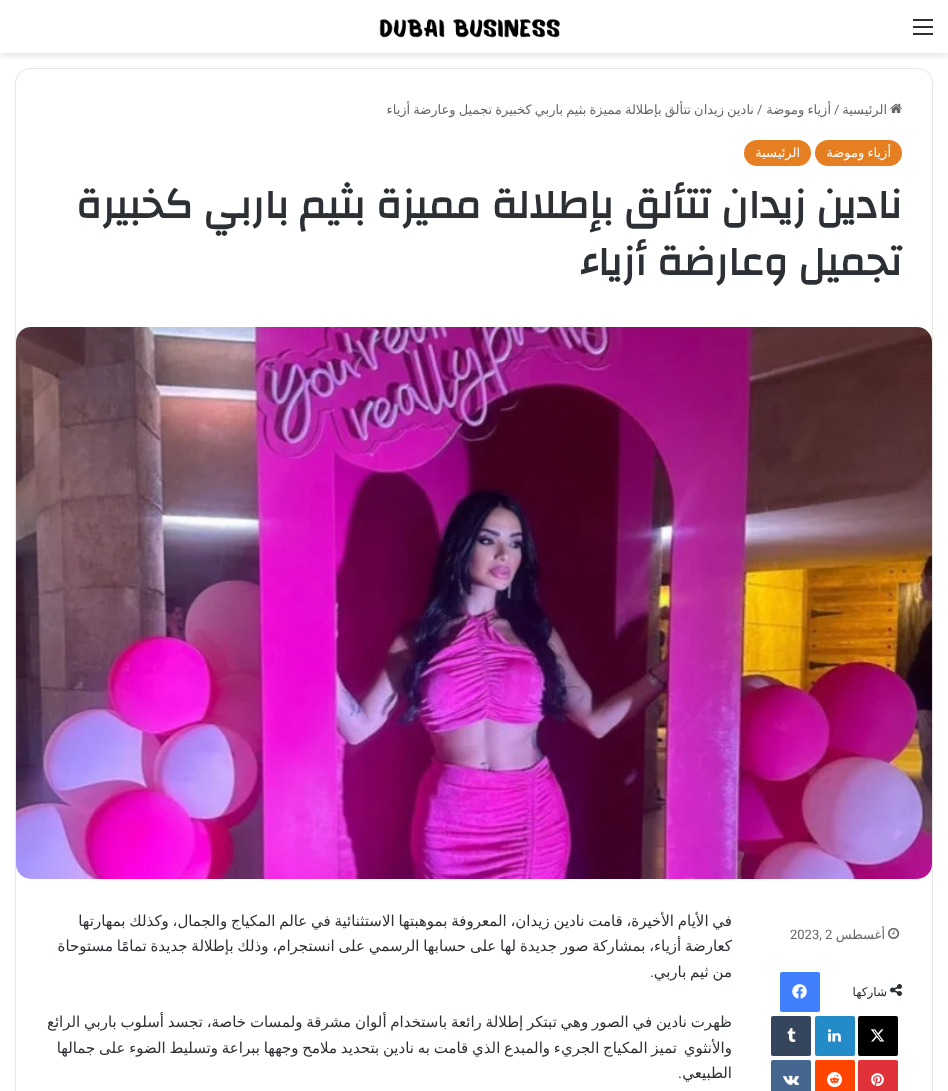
<svg xmlns="http://www.w3.org/2000/svg" width="948" height="1091">
	<defs>
		<clipPath id="clip1"><rect x="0" y="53" width="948" height="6" /></clipPath>
	</defs>
	<rect width="100%" height="100%" fill="#FFFFFF" />
	<g clip-path="url(#clip1)">
		<rect x="0" y="3" width="948" height="53" fill="#000000" fill-opacity="0.1" filter="blur(3.5px)" />
	</g>
	<rect x="913" y="26" width="20" height="2" fill="#2C2F34" />
	<rect x="913" y="19" width="20" height="2" fill="#2C2F34" />
	<rect x="913" y="33" width="20" height="2" fill="#2C2F34" />
	<image x="379" y="18" width="181" height="20" href="assets/img1.png" />
	<rect x="15.5" y="68.5" width="917" height="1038" rx="14.5" fill="none" stroke="#E5E5E5" />
	<text x="831" y="114" word-spacing="-1" font-family="DejaVu Sans" font-size="13" direction="rtl" fill="#666666">أزياء وموضة</text>
	<text x="757" y="114" font-family="Roboto" font-size="13" fill="#666666">/</text>
	<text x="754" y="114" word-spacing="-1" font-family="DejaVu Sans" font-size="13" direction="rtl" fill="#666666">نادين زيدان تتألق بإطلالة مميزة بثيم باربي كخبيرة تجميل وعارضة أزياء</text>
	<image x="890" y="103" width="12" height="11" href="assets/img2.png" />
	<text x="887" y="114" font-family="DejaVu Sans" font-size="13" direction="rtl" fill="#666666">الرئيسية</text>
	<text x="834" y="114" font-family="Roboto" font-size="13" fill="#666666">/</text>
	<rect x="815" y="140" width="87" height="26" rx="13" fill="#E67E22" />
	<text x="891" y="157" word-spacing="-1" font-family="DejaVu Sans" font-size="13" direction="rtl" fill="#FFFFFF">أزياء وموضة</text>
	<rect x="744" y="140" width="67" height="26" rx="13" fill="#E67E22" />
	<text x="800" y="157" font-family="DejaVu Sans" font-size="13" direction="rtl" fill="#FFFFFF">الرئيسية</text>
	<g font-family="Changa" font-size="41" font-weight="700" direction="rtl" fill="#2C2F34">
		<text x="902" y="218">نادين زيدان تتألق بإطلالة مميزة بثيم باربي كخبيرة</text>
		<text x="902" y="275">تجميل وعارضة أزياء</text>
	</g>
	<image x="16" y="327" width="916" height="552" href="assets/img3.png" />
	<image x="888" y="927" width="12" height="12" href="assets/img4.png" />
	<text x="885" y="939" font-family="DejaVu Sans" font-size="13" direction="rtl" fill="#666666">أغسطس</text>
	<text x="790" y="939" font-family="Roboto" font-size="13" fill="#666666">2023, 2</text>
	<image x="890" y="984" width="12" height="12" href="assets/img5.png" />
	<text x="887" y="996" font-family="DejaVu Sans" font-size="12" direction="rtl" fill="#2C2F34">شاركها</text>
	<rect x="780" y="972" width="40" height="40" rx="2" fill="#4080FF" />
	<image x="792" y="984" width="15" height="15" href="assets/img6.png" />
	<rect x="858" y="1016" width="40" height="40" rx="2" fill="#000000" />
	<image x="870" y="1029" width="15" height="13" href="assets/img7.png" />
	<rect x="815" y="1016" width="40" height="40" rx="2" fill="#238CC8" />
	<image x="828" y="1029" width="13" height="13" href="assets/img8.png" />
	<rect x="771" y="1016" width="40" height="40" rx="2" fill="#35465C" />
	<image x="787" y="1028" width="9" height="14" href="assets/img9.png" />
	<rect x="858" y="1060" width="40" height="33" rx="2" fill="#E13138" />
	<image x="871" y="1073" width="13" height="13" href="assets/img10.png" />
	<rect x="815" y="1060" width="40" height="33" rx="2" fill="#FF4500" />
	<image x="827" y="1072" width="15" height="16" href="assets/img11.png" />
	<rect x="771" y="1060" width="40" height="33" rx="2" fill="#45668E" />
	<image x="783" y="1075" width="16" height="10" href="assets/img12.png" />
	<g font-family="DejaVu Sans" font-size="15" direction="rtl" fill="#2C2F34">
		<text x="732" y="926" word-spacing="-1">في الأيام الأخيرة، قامت نادين زيدان، المعروفة بموهبتها الاستثنائية في عالم المكياج والجمال، وكذلك بمهارتها</text>
		<text x="732" y="951" word-spacing="-1">كعارضة أزياء، بمشاركة صور جديدة لها على حسابها الرسمي على انستجرام، وذلك بإطلالة جديدة تمامًا مستوحاة</text>
		<text x="732" y="977" word-spacing="-1">من ثيم باربي</text>
	</g>
	<text x="654" y="977" font-family="Roboto" font-size="15" direction="rtl" fill="#2C2F34">.</text>
	<g font-family="DejaVu Sans" font-size="15" direction="rtl" fill="#2C2F34">
		<text x="732" y="1027" word-spacing="-1">ظهرت نادين في الصور وهي تبتكر إطلالة رائعة باستخدام ألوان مشرقة ولمسات خاصة، تجسد أسلوب باربي الرائع</text>
		<text x="677" y="1053" word-spacing="-1">تميز المكياج الجريء والمبدع الذي قامت به نادين بتحديد ملامح وجهها ببراعة وتسليط الضوء على جمالها</text>
		<text x="732" y="1053">والأنثوي</text>
		<text x="732" y="1078">الطبيعي</text>
	</g>
	<text x="682" y="1078" font-family="Roboto" font-size="15" direction="rtl" fill="#2C2F34">.</text>
</svg>
